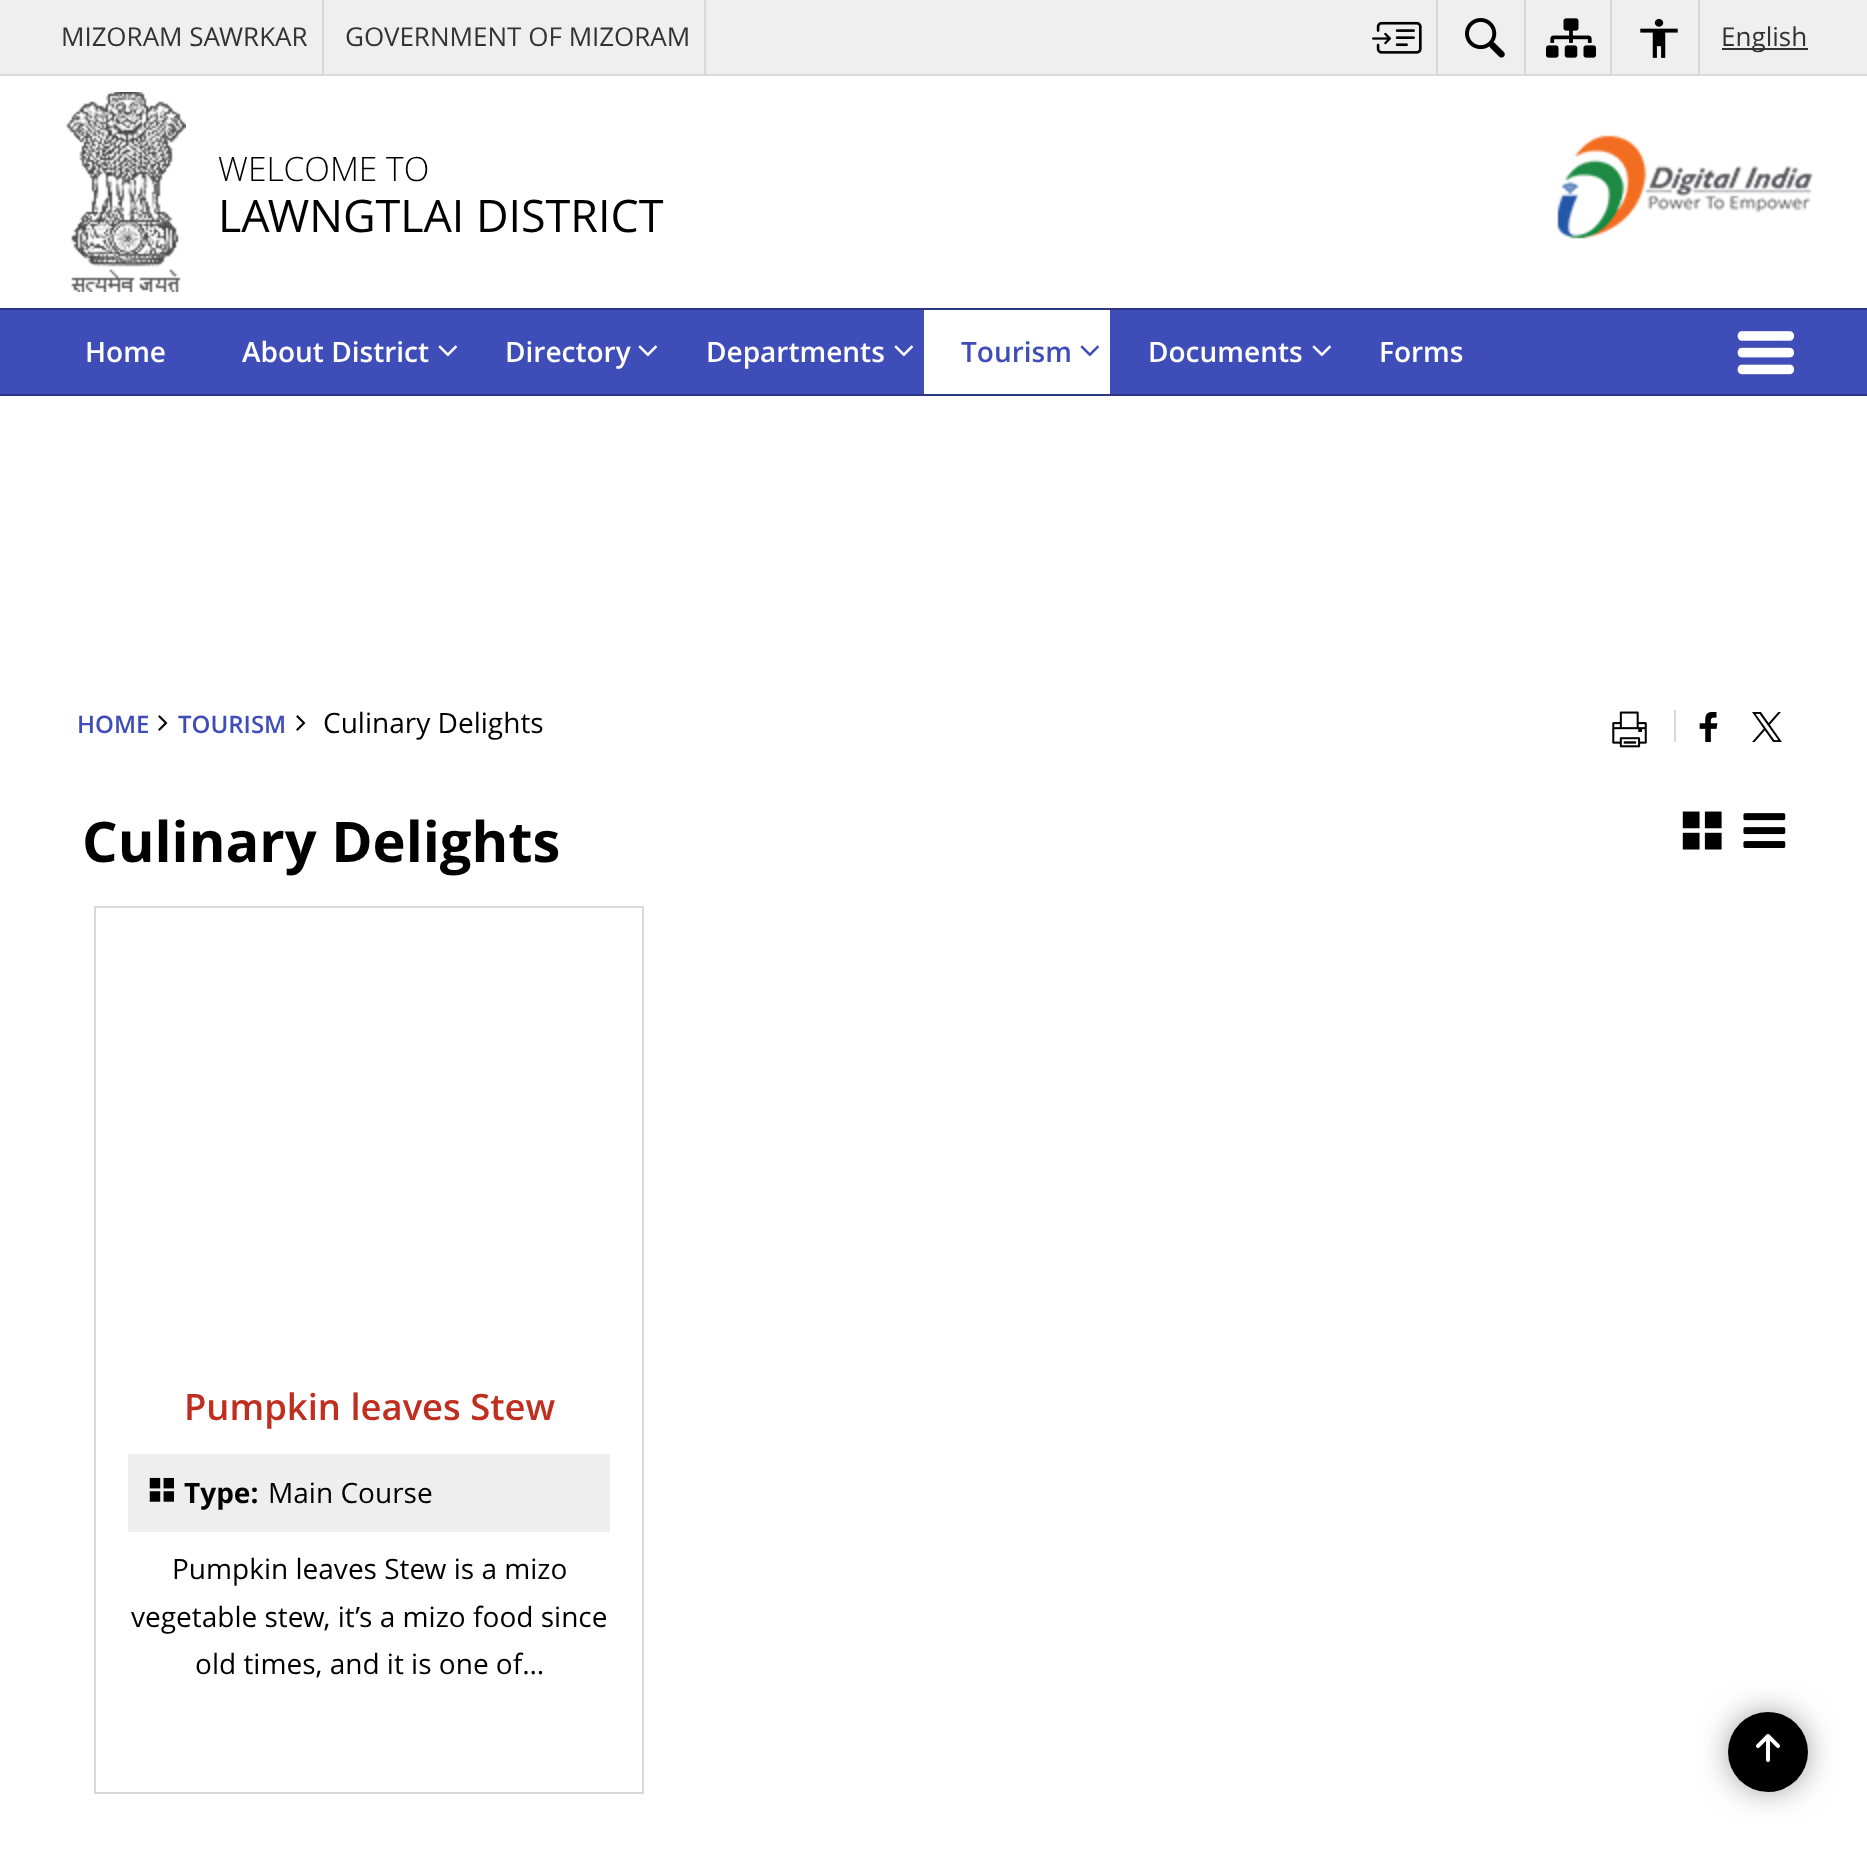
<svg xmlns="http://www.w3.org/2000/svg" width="1867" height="1852">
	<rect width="100%" height="100%" fill="#FFFFFF" />
	<rect x="0" y="0" width="1867" height="74" fill="#EFEFEF" />
	<rect x="0" y="74" width="1867" height="2" fill="#D8D8D8" />
	<rect x="322" y="0" width="2" height="74" fill="#D8D8D8" />
	<text x="61" y="46" font-family="Open Sans" font-size="26" fill="#333333">MIZORAM SAWRKAR</text>
	<rect x="704" y="0" width="2" height="74" fill="#D8D8D8" />
	<text x="345" y="46" font-family="Open Sans" font-size="26" fill="#333333">GOVERNMENT OF MIZORAM</text>
	<rect x="1436" y="0" width="2" height="74" fill="#D8D8D8" />
	<image x="1372" y="21" width="50" height="33" href="assets/img1.png" />
	<rect x="1524" y="0" width="2" height="74" fill="#D8D8D8" />
	<image x="1465" y="18" width="40" height="40" href="assets/img2.png" />
	<rect x="1610" y="0" width="2" height="74" fill="#D8D8D8" />
	<image x="1546" y="18" width="50" height="40" href="assets/img3.png" />
	<rect x="1698" y="0" width="2" height="74" fill="#D8D8D8" />
	<image x="1640" y="19" width="38" height="39" href="assets/img4.png" />
	<rect x="1722" y="48" width="86" height="2" fill="#333333" />
	<text x="1721" y="46" font-family="Open Sans" font-size="26" fill="#333333">English</text>
	<image x="66" y="92" width="120" height="200" href="assets/img5.png" />
	<text x="218" y="181" font-family="Open Sans" font-size="33.5" font-weight="300" fill="#000000">WELCOME TO</text>
	<text x="218" y="232" font-family="Open Sans" font-size="44.75" fill="#000000">LAWNGTLAI DISTRICT</text>
	<image x="1557" y="135" width="256" height="104" href="assets/img6.png" />
	<rect x="0" y="310" width="1867" height="84" fill="#3F4DB8" />
	<rect x="0" y="308" width="1867" height="2" fill="#2C3681" />
	<rect x="0" y="394" width="1867" height="2" fill="#2C3681" />
	<g font-family="Open Sans" font-size="28" font-weight="600" fill="#FFFFFF">
		<text x="85" y="362">Home</text>
		<text x="242" y="362">About District</text>
	</g>
	<image x="438" y="345" width="19" height="12" href="assets/img7.png" />
	<text x="505" y="362" font-family="Open Sans" font-size="28" font-weight="600" fill="#FFFFFF">Directory</text>
	<image x="638" y="345" width="19" height="12" href="assets/img7.png" />
	<text x="706" y="362" font-family="Open Sans" font-size="28" font-weight="600" fill="#FFFFFF">Departments</text>
	<image x="894" y="345" width="19" height="12" href="assets/img7.png" />
	<rect x="924" y="310" width="186" height="84" fill="#FFFFFF" />
	<text x="961" y="362" font-family="Open Sans" font-size="28" font-weight="600" fill="#3F4DB8">Tourism</text>
	<image x="1080" y="345" width="19" height="12" href="assets/img8.png" />
	<text x="1148" y="362" font-family="Open Sans" font-size="28" font-weight="600" fill="#FFFFFF">Documents</text>
	<image x="1312" y="345" width="19" height="12" href="assets/img7.png" />
	<text x="1379" y="362" font-family="Open Sans" font-size="28" font-weight="600" fill="#FFFFFF">Forms</text>
	<image x="1737" y="331" width="58" height="44" href="assets/img9.png" />
	<text x="77" y="733" font-family="Open Sans" font-size="24" font-weight="600" fill="#3F4DB8">HOME</text>
	<image x="158" y="715" width="10" height="16" href="assets/img10.png" />
	<text x="178" y="733" font-family="Open Sans" font-size="24" font-weight="600" fill="#3F4DB8">TOURISM</text>
	<image x="296" y="715" width="10" height="16" href="assets/img10.png" />
	<text x="323" y="733" font-family="Open Sans" font-size="28" fill="#000000">Culinary Delights</text>
	<image x="1612" y="711" width="35" height="37" href="assets/img11.png" />
	<rect x="1674" y="710" width="2" height="32" fill="#D8D8D8" />
	<image x="1699" y="712" width="19" height="30" href="assets/img12.png" />
	<image x="1752" y="712" width="30" height="30" href="assets/img13.png" />
	<text x="82" y="862" font-family="Open Sans" font-size="56" font-weight="700" fill="#000000">Culinary Delights</text>
	<image x="1682" y="811" width="40" height="39" href="assets/img14.png" />
	<image x="1743" y="813" width="43" height="35" href="assets/img15.png" />
	<rect x="95" y="907" width="548" height="886" fill="none" stroke="#D8D8D8" stroke-width="2" />
	<text x="184" y="1420" font-family="Open Sans" font-size="36.4" font-weight="600" fill="#C02E1F">Pumpkin leaves Stew</text>
	<rect x="128" y="1454" width="482" height="78" fill="#EEEEEE" />
	<image x="149" y="1477" width="25" height="25" href="assets/img16.png" />
	<text x="184" y="1503" font-family="Open Sans" font-size="28" font-weight="700" fill="#000000">Type:</text>
	<g font-family="Open Sans" font-size="28" fill="#000000">
		<text x="268" y="1503">Main Course</text>
		<text x="172" y="1579">Pumpkin leaves Stew is a mizo</text>
		<text x="131" y="1627">vegetable stew, it’s a mizo food since</text>
		<text x="195" y="1674">old times, and it is one of…</text>
	</g>
	<rect x="1738" y="1722" width="60" height="60" rx="30" fill="#3C3C3C" filter="blur(19px)" />
	<circle cx="1768" cy="1752" r="40" fill="#000000" />
	<image x="1756" y="1734" width="24" height="28" href="assets/img17.png" />
</svg>
